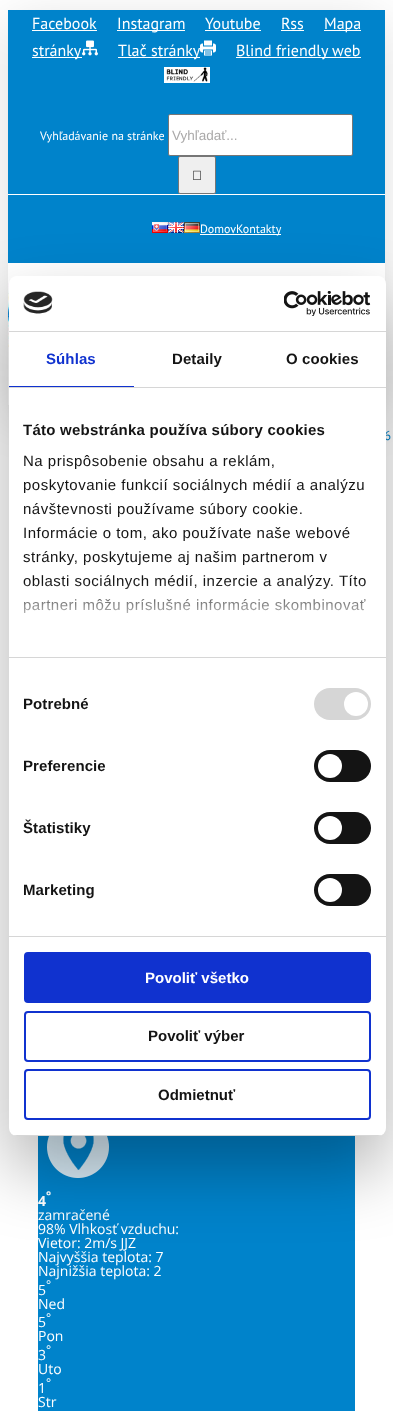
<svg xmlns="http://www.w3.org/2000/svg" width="393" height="1411">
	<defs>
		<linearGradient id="g1" gradientUnits="userSpaceOnUse" x1="191" y1="657" x2="191" y2="582"><stop offset="0" stop-color="#FFFFFF" /><stop offset="0.5" stop-color="#FFFFFF" stop-opacity="0.8" /><stop offset="1" stop-color="#FFFFFF" stop-opacity="0" /></linearGradient>
		<clipPath id="clip1"><rect x="9" y="276" width="377" height="860" rx="8" /></clipPath>
	</defs>
	<rect width="100%" height="100%" fill="#FFFFFF" />
	<rect x="10" y="22" width="373" height="391" fill="#000000" fill-opacity="0.14" filter="blur(25px)" />
	<rect x="8" y="10" width="377" height="253" fill="#0083CB" />
	<rect x="8" y="194" width="377" height="1" fill="#FFFFFF" />
	<text x="32" y="29" font-family="PT Sans" font-size="16" fill="#FFFFFF">Facebook</text>
	<rect x="32" y="30" width="65" height="1" fill="#FFFFFF" />
	<rect x="117" y="30" width="68" height="1" fill="#FFFFFF" />
	<g font-family="PT Sans" font-size="16" fill="#FFFFFF">
		<text x="117" y="29">Instagram</text>
		<text x="205" y="29">Youtube</text>
	</g>
	<rect x="205" y="30" width="56" height="1" fill="#FFFFFF" />
	<text x="281" y="29" font-family="PT Sans" font-size="16" fill="#FFFFFF">Rss</text>
	<rect x="281" y="30" width="23" height="1" fill="#FFFFFF" />
	<rect x="324" y="30" width="37" height="1" fill="#FFFFFF" />
	<text x="324" y="29" font-family="PT Sans" font-size="16" fill="#FFFFFF">Mapa</text>
	<rect x="32" y="57" width="50" height="1" fill="#FFFFFF" />
	<text x="32" y="56" font-family="PT Sans" font-size="16" fill="#FFFFFF">stránky</text>
	<image x="82" y="40" width="16" height="16" href="assets/img1.png" />
	<rect x="118" y="57" width="82" height="1" fill="#FFFFFF" />
	<text x="118" y="56" font-family="PT Sans" font-size="16" fill="#FFFFFF">Tlač stránky</text>
	<image x="200" y="40" width="16" height="16" href="assets/img2.png" />
	<rect x="236" y="57" width="125" height="1" fill="#FFFFFF" />
	<text x="236" y="56" font-family="PT Sans" font-size="16" fill="#FFFFFF">Blind friendly web</text>
	<image x="164" y="67" width="46" height="16" href="assets/img3.png" />
	<text x="40" y="140" font-family="PT Sans" font-size="12" fill="#FFFFFF">Vyhľadávanie na stránke</text>
	<rect x="168.5" y="114.5" width="184" height="41" rx="1.5" fill="#FFFFFF" stroke="#767676" />
	<text x="172" y="140" font-family="Liberation Sans" font-size="13.5" fill="#AAA9A9">Vyhľadať...</text>
	<rect x="178.5" y="156.5" width="37" height="37" rx="1.5" fill="#EFEFEF" stroke="#767676" />
	<image x="193" y="170" width="8" height="10" href="assets/img4.png" />
	<image x="152" y="222" width="16" height="11" href="assets/img5.png" />
	<image x="168" y="222" width="16" height="11" href="assets/img6.png" />
	<image x="184" y="222" width="16" height="11" href="assets/img7.png" />
	<rect x="200" y="234" width="81" height="1" fill="#FFFFFF" />
	<text x="200" y="233" font-family="PT Sans" font-size="12" fill="#FFFFFF">DomovKontakty</text>
	<rect x="8" y="263" width="377" height="142" fill="#FFFFFF" />
	<image x="8" y="283" width="2" height="64" href="assets/img8.png" />
	<text x="384" y="440" font-family="PT Sans" font-size="13" fill="#0083CB">6</text>
	<rect x="38" y="1136" width="317" height="275" fill="#0083CB" />
	<image x="47" y="1136" width="62" height="42" href="assets/img9.png" />
	<text x="46" y="1200" font-family="Open Sans" font-size="12" font-weight="700" fill="#FFFFFF">°</text>
	<text x="38" y="1206" font-family="Open Sans" font-size="14" font-weight="700" fill="#FFFFFF">4</text>
	<g font-family="Open Sans" font-size="14" fill="#FFFFFF">
		<text x="38" y="1220">zamračené</text>
		<text x="38" y="1234">98% Vlhkosť vzduchu:</text>
		<text x="38" y="1248">Vietor: 2m/s JJZ</text>
		<text x="38" y="1262">Najvyššia teplota: 7</text>
		<text x="38" y="1276">Najnižšia teplota: 2</text>
	</g>
	<text x="46" y="1289" font-family="Open Sans" font-size="12" fill="#FFFFFF">°</text>
	<g font-family="Open Sans" font-size="14" fill="#FFFFFF">
		<text x="38" y="1295">5</text>
		<text x="38" y="1309">Ned</text>
	</g>
	<text x="46" y="1322" font-family="Open Sans" font-size="12" fill="#FFFFFF">°</text>
	<g font-family="Open Sans" font-size="14" fill="#FFFFFF">
		<text x="38" y="1327">5</text>
		<text x="38" y="1341">Pon</text>
	</g>
	<text x="46" y="1354" font-family="Open Sans" font-size="12" fill="#FFFFFF">°</text>
	<g font-family="Open Sans" font-size="14" fill="#FFFFFF">
		<text x="38" y="1360">3</text>
		<text x="38" y="1374">Uto</text>
	</g>
	<text x="46" y="1387" font-family="Open Sans" font-size="12" fill="#FFFFFF">°</text>
	<g font-family="Open Sans" font-size="14" fill="#FFFFFF">
		<text x="38" y="1393">1</text>
		<text x="38" y="1407">Str</text>
	</g>
	<rect x="9" y="308" width="377" height="860" rx="8" fill="#000000" fill-opacity="0.3" filter="blur(34px)" />
	<rect x="9" y="276" width="377" height="860" rx="8" fill="#FFFFFF" />
	<rect x="9" y="331" width="377" height="1" fill="#D6D6D6" />
	<image x="23" y="291" width="30" height="23" href="assets/img10.png" />
	<image x="284" y="291" width="87" height="25" href="assets/img11.png" />
	<rect x="9" y="387" width="377" height="1" fill="#D6D6D6" />
	<rect x="9" y="386" width="125" height="1" fill="#1032CF" />
	<text x="46" y="364" font-family="Liberation Sans" font-size="15" font-weight="700" letter-spacing="0.1" fill="#1032CF">Súhlas</text>
	<g font-family="Liberation Sans" font-size="15" font-weight="700" letter-spacing="0.1" fill="#141414">
		<text x="172" y="364">Detaily</text>
		<text x="286" y="364">O cookies</text>
	</g>
	<rect x="9" y="657" width="377" height="1" fill="#D6D6D6" />
	<text x="23" y="435" font-family="Liberation Sans" font-size="15" font-weight="700" letter-spacing="0.25" fill="#141414">Táto webstránka používa súbory cookies</text>
	<g font-family="Liberation Sans" font-size="15" letter-spacing="0.5" fill="#141414">
		<text x="23" y="466">Na prispôsobenie obsahu a reklám,</text>
		<text x="23" y="490">poskytovanie funkcií sociálnych médií a analýzu</text>
		<text x="23" y="514">návštevnosti používame súbory cookie.</text>
		<text x="23" y="538">Informácie o tom, ako používate naše webové</text>
		<text x="23" y="562">stránky, poskytujeme aj našim partnerom v</text>
		<text x="23" y="586">oblasti sociálnych médií, inzercie a analýzy. Títo</text>
		<text x="23" y="610">partneri môžu príslušné informácie skombinovať</text>
	</g>
	<rect x="24" y="583" width="342" height="31" fill="url(#g1)" />
	<rect x="9" y="936" width="377" height="1" fill="#D6D6D6" />
	<text x="23" y="709" font-family="Liberation Sans" font-size="15" font-weight="700" letter-spacing="0.1" fill="#141414">Potrebné</text>
	<rect x="314" y="688" width="57" height="32" rx="16" fill="#D6D6D6" />
	<circle cx="356" cy="704" r="12" fill="#FFFFFF" />
	<text x="23" y="771" font-family="Liberation Sans" font-size="15" font-weight="700" letter-spacing="0.1" fill="#141414">Preferencie</text>
	<rect x="314" y="750" width="57" height="32" rx="16" fill="#141414" />
	<circle cx="330" cy="766" r="12" fill="#FFFFFF" />
	<text x="23" y="833" font-family="Liberation Sans" font-size="15" font-weight="700" letter-spacing="0.1" fill="#141414">Štatistiky</text>
	<rect x="314" y="812" width="57" height="32" rx="16" fill="#141414" />
	<circle cx="330" cy="828" r="12" fill="#FFFFFF" />
	<text x="23" y="895" font-family="Liberation Sans" font-size="15" font-weight="700" letter-spacing="0.1" fill="#141414">Marketing</text>
	<rect x="314" y="874" width="57" height="32" rx="16" fill="#141414" />
	<circle cx="330" cy="890" r="12" fill="#FFFFFF" />
	<g clip-path="url(#clip1)">
		<rect x="9" y="1135" width="377" height="1" fill="#D6D6D6" />
	</g>
	<rect x="25" y="953" width="345" height="49" rx="3" fill="#1032CF" stroke="#1032CF" stroke-width="2" />
	<text x="145" y="983" font-family="Liberation Sans" font-size="15" font-weight="700" fill="#FFFFFF">Povoliť všetko</text>
	<rect x="25" y="1012" width="345" height="49" rx="3" fill="none" stroke="#1032CF" stroke-width="2" />
	<text x="148" y="1041" font-family="Liberation Sans" font-size="15" font-weight="700" fill="#141414">Povoliť výber</text>
	<rect x="25" y="1070" width="345" height="49" rx="3" fill="none" stroke="#1032CF" stroke-width="2" />
	<text x="158" y="1100" font-family="Liberation Sans" font-size="15" font-weight="700" fill="#141414">Odmietnuť</text>
</svg>
